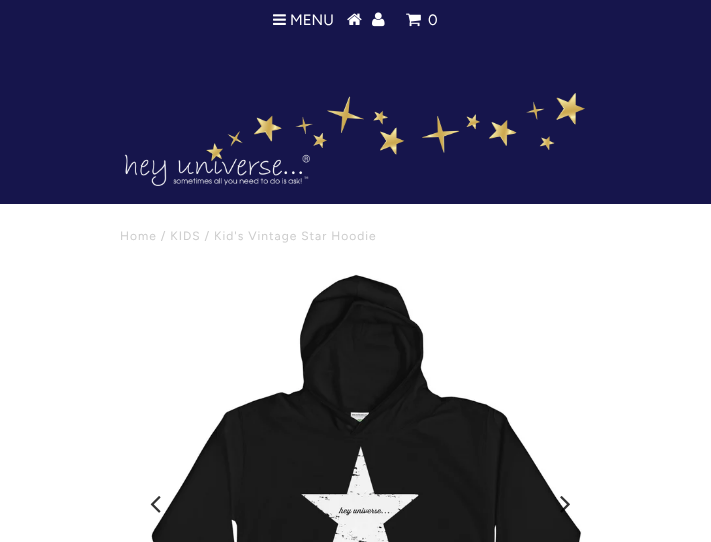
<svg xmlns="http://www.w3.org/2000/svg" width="711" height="542">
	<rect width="100%" height="100%" fill="#FFFFFF" />
	<rect x="0" y="0" width="711" height="204" fill="#16154C" />
	<image x="124" y="93" width="461" height="93" href="assets/img1.png" />
	<image x="273" y="14" width="13" height="11" href="assets/img2.png" />
	<text x="290" y="25" font-family="Figtree" font-size="15" fill="#FFFFFF">MENU</text>
	<image x="347" y="13" width="15" height="12" href="assets/img3.png" />
	<image x="372" y="12" width="13" height="15" href="assets/img4.png" />
	<image x="406" y="13" width="15" height="14" href="assets/img5.png" />
	<text x="428" y="25" font-family="Figtree" font-size="15" fill="#FFFFFF">0</text>
	<text x="120" y="240" font-family="Figtree" font-size="12" letter-spacing="1" fill="#CCCCCC">Home / KIDS / Kid's Vintage Star Hoodie</text>
	<image x="151" y="274" width="431" height="268" href="assets/img6.png" />
	<image x="150" y="496" width="11" height="17" href="assets/img7.png" />
	<image x="560" y="496" width="10" height="17" href="assets/img8.png" />
</svg>
